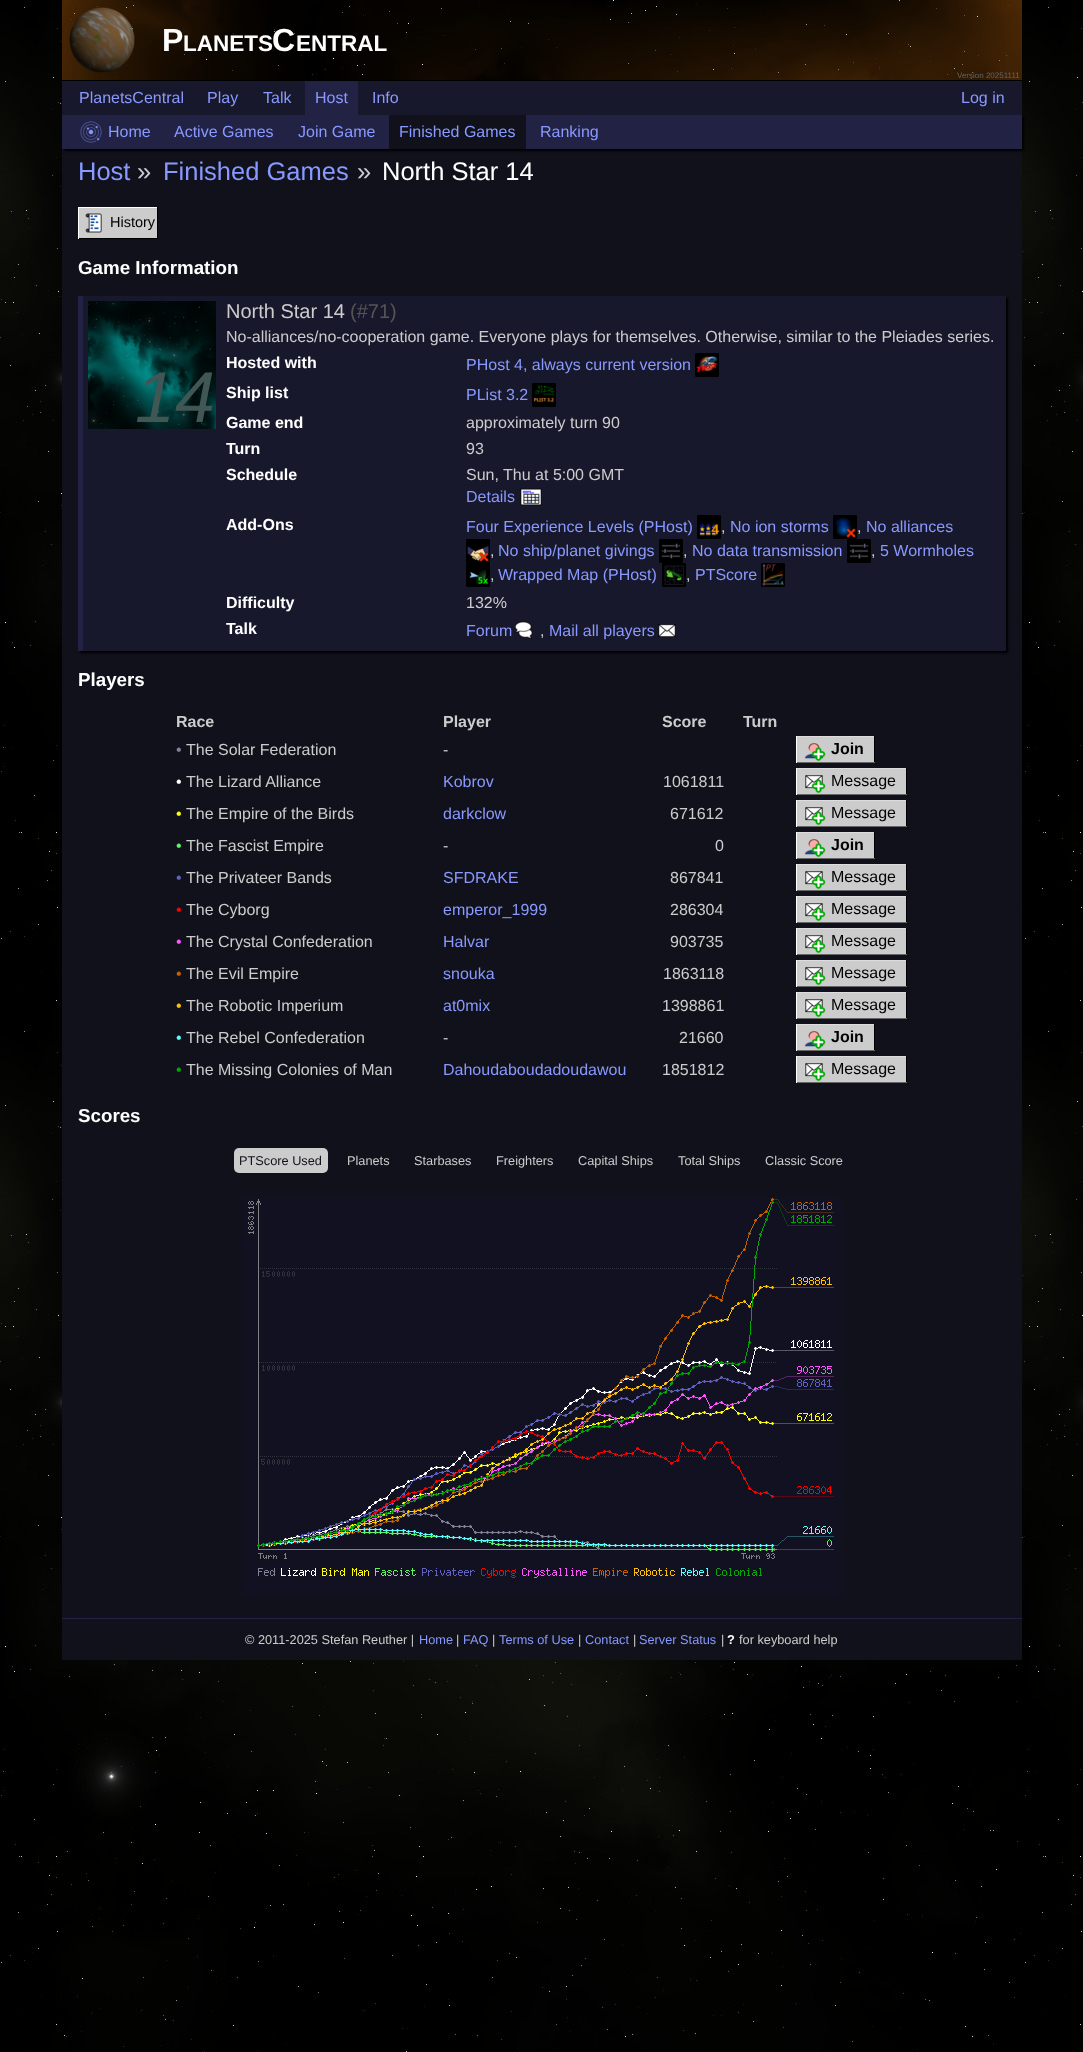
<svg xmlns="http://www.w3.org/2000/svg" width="1083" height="2052">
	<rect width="100%" height="100%" fill="#FFFFFF" />
	<image x="0" y="0" width="1083" height="2052" href="assets/img1.png" />
	<rect x="62" y="149" width="960" height="1511" fill="#11111C" />
	<image x="62" y="0" width="960" height="80" href="assets/img2.png" />
	<rect x="62" y="80" width="960" height="1" fill="#000000" />
	<image x="69" y="7" width="66" height="66" href="assets/img3.png" />
	<text x="162" y="51" font-family="Liberation Sans" font-size="32" font-weight="700" fill="#FFFFFF">P</text>
	<text x="183" y="51" font-family="Liberation Sans" font-size="22.5" font-weight="700" fill="#FFFFFF">LANETS</text>
	<text x="272" y="51" font-family="Liberation Sans" font-size="32" font-weight="700" fill="#FFFFFF">C</text>
	<text x="296" y="51" font-family="Liberation Sans" font-size="22.5" font-weight="700" fill="#FFFFFF">ENTRAL</text>
	<text x="957" y="78" font-family="Liberation Sans" font-size="8" fill="#666666">Version 20251111</text>
	<rect x="62" y="81" width="960" height="34" fill="#18182C" />
	<g font-family="Liberation Sans" font-size="16" fill="#8899FF">
		<text x="79" y="103">PlanetsCentral</text>
		<text x="207" y="103">Play</text>
		<text x="263" y="103">Talk</text>
	</g>
	<rect x="64" y="117" width="960" height="34" fill="#000000" filter="blur(1px)" />
	<rect x="305" y="81" width="53" height="34" fill="#222244" />
	<g font-family="Liberation Sans" font-size="16" fill="#8899FF">
		<text x="315" y="103">Host</text>
		<text x="372" y="103">Info</text>
		<text x="961" y="103">Log in</text>
	</g>
	<rect x="62" y="115" width="960" height="34" fill="#222244" />
	<image x="80" y="121" width="22" height="22" href="assets/img4.png" />
	<g font-family="Liberation Sans" font-size="16" fill="#8899FF">
		<text x="108" y="137">Home</text>
		<text x="174" y="137">Active Games</text>
		<text x="298" y="137">Join Game</text>
	</g>
	<rect x="389" y="115" width="137" height="34" fill="#11111C" />
	<g font-family="Liberation Sans" font-size="16" fill="#8899FF">
		<text x="399" y="137">Finished Games</text>
		<text x="540" y="137">Ranking</text>
	</g>
	<text x="78" y="180" font-family="Liberation Sans" font-size="25.5" fill="#8899FF">Host</text>
	<text x="137" y="180" font-family="Liberation Sans" font-size="25.5" fill="#CCCCCC">»</text>
	<text x="163" y="180" font-family="Liberation Sans" font-size="25.5" fill="#8899FF">Finished Games</text>
	<text x="357" y="180" font-family="Liberation Sans" font-size="25.5" fill="#CCCCCC">»</text>
	<text x="382" y="180" font-family="Liberation Sans" font-size="25.5" fill="#FFFFFF">North Star 14</text>
	<rect x="79" y="208" width="78" height="30" fill="#CCCCCC" />
	<rect x="78" y="207" width="80" height="1" fill="#FFFFFF" />
	<rect x="157" y="207" width="1" height="32" fill="#000000" />
	<rect x="78" y="238" width="80" height="1" fill="#000000" />
	<rect x="78" y="207" width="1" height="32" fill="#FFFFFF" />
	<image x="85" y="213" width="17" height="20" href="assets/img5.png" />
	<text x="110" y="227" font-family="Liberation Sans" font-size="14.5" fill="#000000">History</text>
	<text x="78" y="274" font-family="Liberation Sans" font-size="18.75" font-weight="700" fill="#FFFFFF">Game Information</text>
	<rect x="80" y="298" width="928" height="355" fill="#000000" filter="blur(1px)" />
	<rect x="83" y="296" width="923" height="355" fill="#18182C" />
	<rect x="78" y="296" width="5" height="355" fill="#222244" />
	<text x="226" y="318" font-family="Liberation Sans" font-size="20" fill="#CCCCCC">North Star 14</text>
	<text x="350" y="318" font-family="Liberation Sans" font-size="20" fill="#555555">(#71)</text>
	<text x="226" y="342" font-family="Liberation Sans" font-size="16" fill="#CCCCCC">No-alliances/no-cooperation game. Everyone plays for themselves. Otherwise, similar to the Pleiades series.</text>
	<image x="88" y="301" width="128" height="128" href="assets/img6.png" />
	<text x="135" y="422" font-family="Liberation Sans" font-size="72" font-style="italic" fill="#415756">14</text>
	<text x="226" y="368" font-family="Liberation Sans" font-size="16" font-weight="700" fill="#FFFFFF">Hosted with</text>
	<text x="466" y="370" font-family="Liberation Sans" font-size="16" fill="#8899FF">PHost 4, always current version</text>
	<image x="695" y="353" width="24" height="24" href="assets/img7.png" />
	<text x="226" y="398" font-family="Liberation Sans" font-size="16" font-weight="700" fill="#FFFFFF">Ship list</text>
	<text x="466" y="400" font-family="Liberation Sans" font-size="16" fill="#8899FF">PList 3.2</text>
	<image x="532" y="383" width="24" height="24" href="assets/img8.png" />
	<text x="226" y="428" font-family="Liberation Sans" font-size="16" font-weight="700" fill="#FFFFFF">Game end</text>
	<text x="466" y="428" font-family="Liberation Sans" font-size="16" fill="#CCCCCC">approximately turn 90</text>
	<text x="226" y="454" font-family="Liberation Sans" font-size="16" font-weight="700" fill="#FFFFFF">Turn</text>
	<text x="466" y="454" font-family="Liberation Sans" font-size="16" fill="#CCCCCC">93</text>
	<text x="226" y="480" font-family="Liberation Sans" font-size="16" font-weight="700" fill="#FFFFFF">Schedule</text>
	<text x="466" y="480" font-family="Liberation Sans" font-size="16" fill="#CCCCCC">Sun, Thu at 5:00 GMT</text>
	<text x="466" y="502" font-family="Liberation Sans" font-size="16" fill="#8899FF">Details</text>
	<image x="520" y="488" width="22" height="18" href="assets/img9.png" />
	<text x="226" y="530" font-family="Liberation Sans" font-size="16" font-weight="700" fill="#FFFFFF">Add-Ons</text>
	<text x="466" y="532" font-family="Liberation Sans" font-size="16" fill="#8899FF">Four Experience Levels (PHost)</text>
	<image x="697" y="515" width="24" height="24" href="assets/img10.png" />
	<text x="721" y="532" font-family="Liberation Sans" font-size="16" fill="#CCCCCC">,</text>
	<text x="730" y="532" font-family="Liberation Sans" font-size="16" fill="#8899FF">No ion storms</text>
	<image x="833" y="515" width="24" height="24" href="assets/img11.png" />
	<text x="857" y="532" font-family="Liberation Sans" font-size="16" fill="#CCCCCC">,</text>
	<text x="866" y="532" font-family="Liberation Sans" font-size="16" fill="#8899FF">No alliances</text>
	<image x="466" y="539" width="24" height="24" href="assets/img12.png" />
	<text x="490" y="556" font-family="Liberation Sans" font-size="16" fill="#CCCCCC">,</text>
	<text x="498" y="556" font-family="Liberation Sans" font-size="16" fill="#8899FF">No ship/planet givings</text>
	<image x="659" y="539" width="24" height="24" href="assets/img13.png" />
	<text x="683" y="556" font-family="Liberation Sans" font-size="16" fill="#CCCCCC">,</text>
	<text x="692" y="556" font-family="Liberation Sans" font-size="16" fill="#8899FF">No data transmission</text>
	<image x="847" y="539" width="24" height="24" href="assets/img13.png" />
	<text x="871" y="556" font-family="Liberation Sans" font-size="16" fill="#CCCCCC">,</text>
	<text x="880" y="556" font-family="Liberation Sans" font-size="16" fill="#8899FF">5 Wormholes</text>
	<image x="466" y="563" width="24" height="24" href="assets/img14.png" />
	<text x="490" y="580" font-family="Liberation Sans" font-size="16" fill="#CCCCCC">,</text>
	<text x="498" y="580" font-family="Liberation Sans" font-size="16" fill="#8899FF">Wrapped Map (PHost)</text>
	<image x="662" y="563" width="24" height="24" href="assets/img15.png" />
	<text x="686" y="580" font-family="Liberation Sans" font-size="16" fill="#CCCCCC">,</text>
	<text x="695" y="580" font-family="Liberation Sans" font-size="16" fill="#8899FF">PTScore</text>
	<image x="761" y="563" width="24" height="24" href="assets/img16.png" />
	<text x="226" y="608" font-family="Liberation Sans" font-size="16" font-weight="700" fill="#FFFFFF">Difficulty</text>
	<text x="466" y="608" font-family="Liberation Sans" font-size="16" fill="#CCCCCC">132%</text>
	<text x="226" y="634" font-family="Liberation Sans" font-size="16" font-weight="700" fill="#FFFFFF">Talk</text>
	<text x="466" y="636" font-family="Liberation Sans" font-size="16" fill="#8899FF">Forum</text>
	<image x="515" y="621" width="18" height="18" href="assets/img17.png" />
	<text x="540" y="636" font-family="Liberation Sans" font-size="16" fill="#CCCCCC">,</text>
	<text x="549" y="636" font-family="Liberation Sans" font-size="16" fill="#8899FF">Mail all players</text>
	<image x="658" y="624" width="18" height="14" href="assets/img18.png" />
	<text x="78" y="686" font-family="Liberation Sans" font-size="18.75" font-weight="700" fill="#FFFFFF">Players</text>
	<g font-family="Liberation Sans" font-size="16" font-weight="700" fill="#CCCCCC">
		<text x="176" y="727">Race</text>
		<text x="443" y="727">Player</text>
		<text x="662" y="727">Score</text>
		<text x="743" y="727">Turn</text>
	</g>
	<text x="176" y="755" font-family="Liberation Sans" font-size="16" fill="#808096">•</text>
	<g font-family="Liberation Sans" font-size="16" fill="#CCCCCC">
		<text x="186" y="755">The Solar Federation</text>
		<text x="443" y="755">-</text>
	</g>
	<rect x="797" y="737" width="77" height="25" fill="#CCCCCC" />
	<rect x="796" y="736" width="79" height="1" fill="#DDDDDD" />
	<rect x="874" y="736" width="1" height="27" fill="#000000" />
	<rect x="796" y="762" width="79" height="1" fill="#666666" />
	<rect x="796" y="736" width="1" height="27" fill="#FFFFFF" />
	<image x="804" y="743" width="22" height="19" href="assets/img19.png" />
	<text x="831" y="754" font-family="Liberation Sans" font-size="16" font-weight="700" fill="#000000">Join</text>
	<text x="176" y="787" font-family="Liberation Sans" font-size="16" fill="#FFFFFF">•</text>
	<text x="186" y="787" font-family="Liberation Sans" font-size="16" fill="#CCCCCC">The Lizard Alliance</text>
	<text x="443" y="787" font-family="Liberation Sans" font-size="16" fill="#8899FF">Kobrov</text>
	<text x="663" y="787" font-family="Liberation Sans" font-size="16" fill="#CCCCCC">1061811</text>
	<rect x="797" y="769" width="109" height="25" fill="#CCCCCC" />
	<rect x="796" y="768" width="111" height="1" fill="#DDDDDD" />
	<rect x="906" y="768" width="1" height="27" fill="#000000" />
	<rect x="796" y="794" width="111" height="1" fill="#666666" />
	<rect x="796" y="768" width="1" height="27" fill="#FFFFFF" />
	<image x="805" y="775" width="21" height="19" href="assets/img20.png" />
	<text x="831" y="786" font-family="Liberation Sans" font-size="16" fill="#000000">Message</text>
	<text x="176" y="819" font-family="Liberation Sans" font-size="16" fill="#FFFF00">•</text>
	<text x="186" y="819" font-family="Liberation Sans" font-size="16" fill="#CCCCCC">The Empire of the Birds</text>
	<text x="443" y="819" font-family="Liberation Sans" font-size="16" fill="#8899FF">darkclow</text>
	<text x="670" y="819" font-family="Liberation Sans" font-size="16" fill="#CCCCCC">671612</text>
	<rect x="797" y="801" width="109" height="25" fill="#CCCCCC" />
	<rect x="796" y="800" width="111" height="1" fill="#DDDDDD" />
	<rect x="906" y="800" width="1" height="27" fill="#000000" />
	<rect x="796" y="826" width="111" height="1" fill="#666666" />
	<rect x="796" y="800" width="1" height="27" fill="#FFFFFF" />
	<image x="805" y="807" width="21" height="19" href="assets/img20.png" />
	<text x="831" y="818" font-family="Liberation Sans" font-size="16" fill="#000000">Message</text>
	<text x="176" y="851" font-family="Liberation Sans" font-size="16" fill="#61F261">•</text>
	<g font-family="Liberation Sans" font-size="16" fill="#CCCCCC">
		<text x="186" y="851">The Fascist Empire</text>
		<text x="443" y="851">-</text>
		<text x="715" y="851">0</text>
	</g>
	<rect x="797" y="833" width="77" height="25" fill="#CCCCCC" />
	<rect x="796" y="832" width="79" height="1" fill="#DDDDDD" />
	<rect x="874" y="832" width="1" height="27" fill="#000000" />
	<rect x="796" y="858" width="79" height="1" fill="#666666" />
	<rect x="796" y="832" width="1" height="27" fill="#FFFFFF" />
	<image x="804" y="839" width="22" height="19" href="assets/img19.png" />
	<text x="831" y="850" font-family="Liberation Sans" font-size="16" font-weight="700" fill="#000000">Join</text>
	<text x="176" y="883" font-family="Liberation Sans" font-size="16" fill="#6161C2">•</text>
	<text x="186" y="883" font-family="Liberation Sans" font-size="16" fill="#CCCCCC">The Privateer Bands</text>
	<text x="443" y="883" font-family="Liberation Sans" font-size="16" fill="#8899FF">SFDRAKE</text>
	<text x="670" y="883" font-family="Liberation Sans" font-size="16" fill="#CCCCCC">867841</text>
	<rect x="797" y="865" width="109" height="25" fill="#CCCCCC" />
	<rect x="796" y="864" width="111" height="1" fill="#DDDDDD" />
	<rect x="906" y="864" width="1" height="27" fill="#000000" />
	<rect x="796" y="890" width="111" height="1" fill="#666666" />
	<rect x="796" y="864" width="1" height="27" fill="#FFFFFF" />
	<image x="805" y="871" width="21" height="19" href="assets/img20.png" />
	<text x="831" y="882" font-family="Liberation Sans" font-size="16" fill="#000000">Message</text>
	<text x="176" y="915" font-family="Liberation Sans" font-size="16" fill="#FF0000">•</text>
	<text x="186" y="915" font-family="Liberation Sans" font-size="16" fill="#CCCCCC">The Cyborg</text>
	<text x="443" y="915" font-family="Liberation Sans" font-size="16" fill="#8899FF">emperor_1999</text>
	<text x="670" y="915" font-family="Liberation Sans" font-size="16" fill="#CCCCCC">286304</text>
	<rect x="797" y="897" width="109" height="25" fill="#CCCCCC" />
	<rect x="796" y="896" width="111" height="1" fill="#DDDDDD" />
	<rect x="906" y="896" width="1" height="27" fill="#000000" />
	<rect x="796" y="922" width="111" height="1" fill="#666666" />
	<rect x="796" y="896" width="1" height="27" fill="#FFFFFF" />
	<image x="805" y="903" width="21" height="19" href="assets/img20.png" />
	<text x="831" y="914" font-family="Liberation Sans" font-size="16" fill="#000000">Message</text>
	<text x="176" y="947" font-family="Liberation Sans" font-size="16" fill="#FF55FF">•</text>
	<text x="186" y="947" font-family="Liberation Sans" font-size="16" fill="#CCCCCC">The Crystal Confederation</text>
	<text x="443" y="947" font-family="Liberation Sans" font-size="16" fill="#8899FF">Halvar</text>
	<text x="670" y="947" font-family="Liberation Sans" font-size="16" fill="#CCCCCC">903735</text>
	<rect x="797" y="929" width="109" height="25" fill="#CCCCCC" />
	<rect x="796" y="928" width="111" height="1" fill="#DDDDDD" />
	<rect x="906" y="928" width="1" height="27" fill="#000000" />
	<rect x="796" y="954" width="111" height="1" fill="#666666" />
	<rect x="796" y="928" width="1" height="27" fill="#FFFFFF" />
	<image x="805" y="935" width="21" height="19" href="assets/img20.png" />
	<text x="831" y="946" font-family="Liberation Sans" font-size="16" fill="#000000">Message</text>
	<text x="176" y="979" font-family="Liberation Sans" font-size="16" fill="#C26100">•</text>
	<text x="186" y="979" font-family="Liberation Sans" font-size="16" fill="#CCCCCC">The Evil Empire</text>
	<text x="443" y="979" font-family="Liberation Sans" font-size="16" fill="#8899FF">snouka</text>
	<text x="663" y="979" font-family="Liberation Sans" font-size="16" fill="#CCCCCC">1863118</text>
	<rect x="797" y="961" width="109" height="25" fill="#CCCCCC" />
	<rect x="796" y="960" width="111" height="1" fill="#DDDDDD" />
	<rect x="906" y="960" width="1" height="27" fill="#000000" />
	<rect x="796" y="986" width="111" height="1" fill="#666666" />
	<rect x="796" y="960" width="1" height="27" fill="#FFFFFF" />
	<image x="805" y="967" width="21" height="19" href="assets/img20.png" />
	<text x="831" y="978" font-family="Liberation Sans" font-size="16" fill="#000000">Message</text>
	<text x="176" y="1011" font-family="Liberation Sans" font-size="16" fill="#FFC200">•</text>
	<text x="186" y="1011" font-family="Liberation Sans" font-size="16" fill="#CCCCCC">The Robotic Imperium</text>
	<text x="443" y="1011" font-family="Liberation Sans" font-size="16" fill="#8899FF">at0mix</text>
	<text x="662" y="1011" font-family="Liberation Sans" font-size="16" fill="#CCCCCC">1398861</text>
	<rect x="797" y="993" width="109" height="25" fill="#CCCCCC" />
	<rect x="796" y="992" width="111" height="1" fill="#DDDDDD" />
	<rect x="906" y="992" width="1" height="27" fill="#000000" />
	<rect x="796" y="1018" width="111" height="1" fill="#666666" />
	<rect x="796" y="992" width="1" height="27" fill="#FFFFFF" />
	<image x="805" y="999" width="21" height="19" href="assets/img20.png" />
	<text x="831" y="1010" font-family="Liberation Sans" font-size="16" fill="#000000">Message</text>
	<text x="176" y="1043" font-family="Liberation Sans" font-size="16" fill="#55FFFF">•</text>
	<g font-family="Liberation Sans" font-size="16" fill="#CCCCCC">
		<text x="186" y="1043">The Rebel Confederation</text>
		<text x="443" y="1043">-</text>
		<text x="679" y="1043">21660</text>
	</g>
	<rect x="797" y="1025" width="77" height="25" fill="#CCCCCC" />
	<rect x="796" y="1024" width="79" height="1" fill="#DDDDDD" />
	<rect x="874" y="1024" width="1" height="27" fill="#000000" />
	<rect x="796" y="1050" width="79" height="1" fill="#666666" />
	<rect x="796" y="1024" width="1" height="27" fill="#FFFFFF" />
	<image x="804" y="1031" width="22" height="19" href="assets/img19.png" />
	<text x="831" y="1042" font-family="Liberation Sans" font-size="16" font-weight="700" fill="#000000">Join</text>
	<text x="176" y="1075" font-family="Liberation Sans" font-size="16" fill="#00AA00">•</text>
	<text x="186" y="1075" font-family="Liberation Sans" font-size="16" fill="#CCCCCC">The Missing Colonies of Man</text>
	<text x="443" y="1075" font-family="Liberation Sans" font-size="16" fill="#8899FF">Dahoudaboudadoudawou</text>
	<text x="662" y="1075" font-family="Liberation Sans" font-size="16" fill="#CCCCCC">1851812</text>
	<rect x="797" y="1057" width="109" height="25" fill="#CCCCCC" />
	<rect x="796" y="1056" width="111" height="1" fill="#DDDDDD" />
	<rect x="906" y="1056" width="1" height="27" fill="#000000" />
	<rect x="796" y="1082" width="111" height="1" fill="#666666" />
	<rect x="796" y="1056" width="1" height="27" fill="#FFFFFF" />
	<image x="805" y="1063" width="21" height="19" href="assets/img20.png" />
	<text x="831" y="1074" font-family="Liberation Sans" font-size="16" fill="#000000">Message</text>
	<text x="78" y="1122" font-family="Liberation Sans" font-size="18.75" font-weight="700" fill="#FFFFFF">Scores</text>
	<rect x="234" y="1148" width="94" height="25" rx="5" fill="#CCCCCC" />
	<text x="239" y="1165" font-family="Liberation Sans" font-size="12.75" fill="#11111C">PTScore Used</text>
	<g font-family="Liberation Sans" font-size="12.75" fill="#CCCCCC">
		<text x="347" y="1165">Planets</text>
		<text x="414" y="1165">Starbases</text>
		<text x="496" y="1165">Freighters</text>
		<text x="578" y="1165">Capital Ships</text>
		<text x="678" y="1165">Total Ships</text>
		<text x="765" y="1165">Classic Score</text>
	</g>
	<image x="242" y="1197" width="600" height="400" href="assets/img21.png" />
	<rect x="62" y="1618" width="960" height="1" fill="#222244" />
	<text x="245" y="1644" font-family="Liberation Sans" font-size="12.75" fill="#CCCCCC">© 2011-2025 Stefan Reuther |</text>
	<text x="419" y="1644" font-family="Liberation Sans" font-size="12.75" fill="#8899FF">Home</text>
	<text x="456" y="1644" font-family="Liberation Sans" font-size="12.75" fill="#CCCCCC">|</text>
	<text x="463" y="1644" font-family="Liberation Sans" font-size="12.75" fill="#8899FF">FAQ</text>
	<text x="492" y="1644" font-family="Liberation Sans" font-size="12.75" fill="#CCCCCC">|</text>
	<text x="499" y="1644" font-family="Liberation Sans" font-size="12.75" fill="#8899FF">Terms of Use</text>
	<text x="578" y="1644" font-family="Liberation Sans" font-size="12.75" fill="#CCCCCC">|</text>
	<text x="585" y="1644" font-family="Liberation Sans" font-size="12.75" fill="#8899FF">Contact</text>
	<text x="633" y="1644" font-family="Liberation Sans" font-size="12.75" fill="#CCCCCC">|</text>
	<text x="639" y="1644" font-family="Liberation Sans" font-size="12.75" fill="#8899FF">Server Status</text>
	<text x="721" y="1644" font-family="Liberation Sans" font-size="12.75" fill="#CCCCCC">|</text>
	<text x="727" y="1644" font-family="Liberation Sans" font-size="12.75" font-weight="700" fill="#FFFFFF">?</text>
	<text x="739" y="1644" font-family="Liberation Sans" font-size="12.75" fill="#CCCCCC">for keyboard help</text>
</svg>
